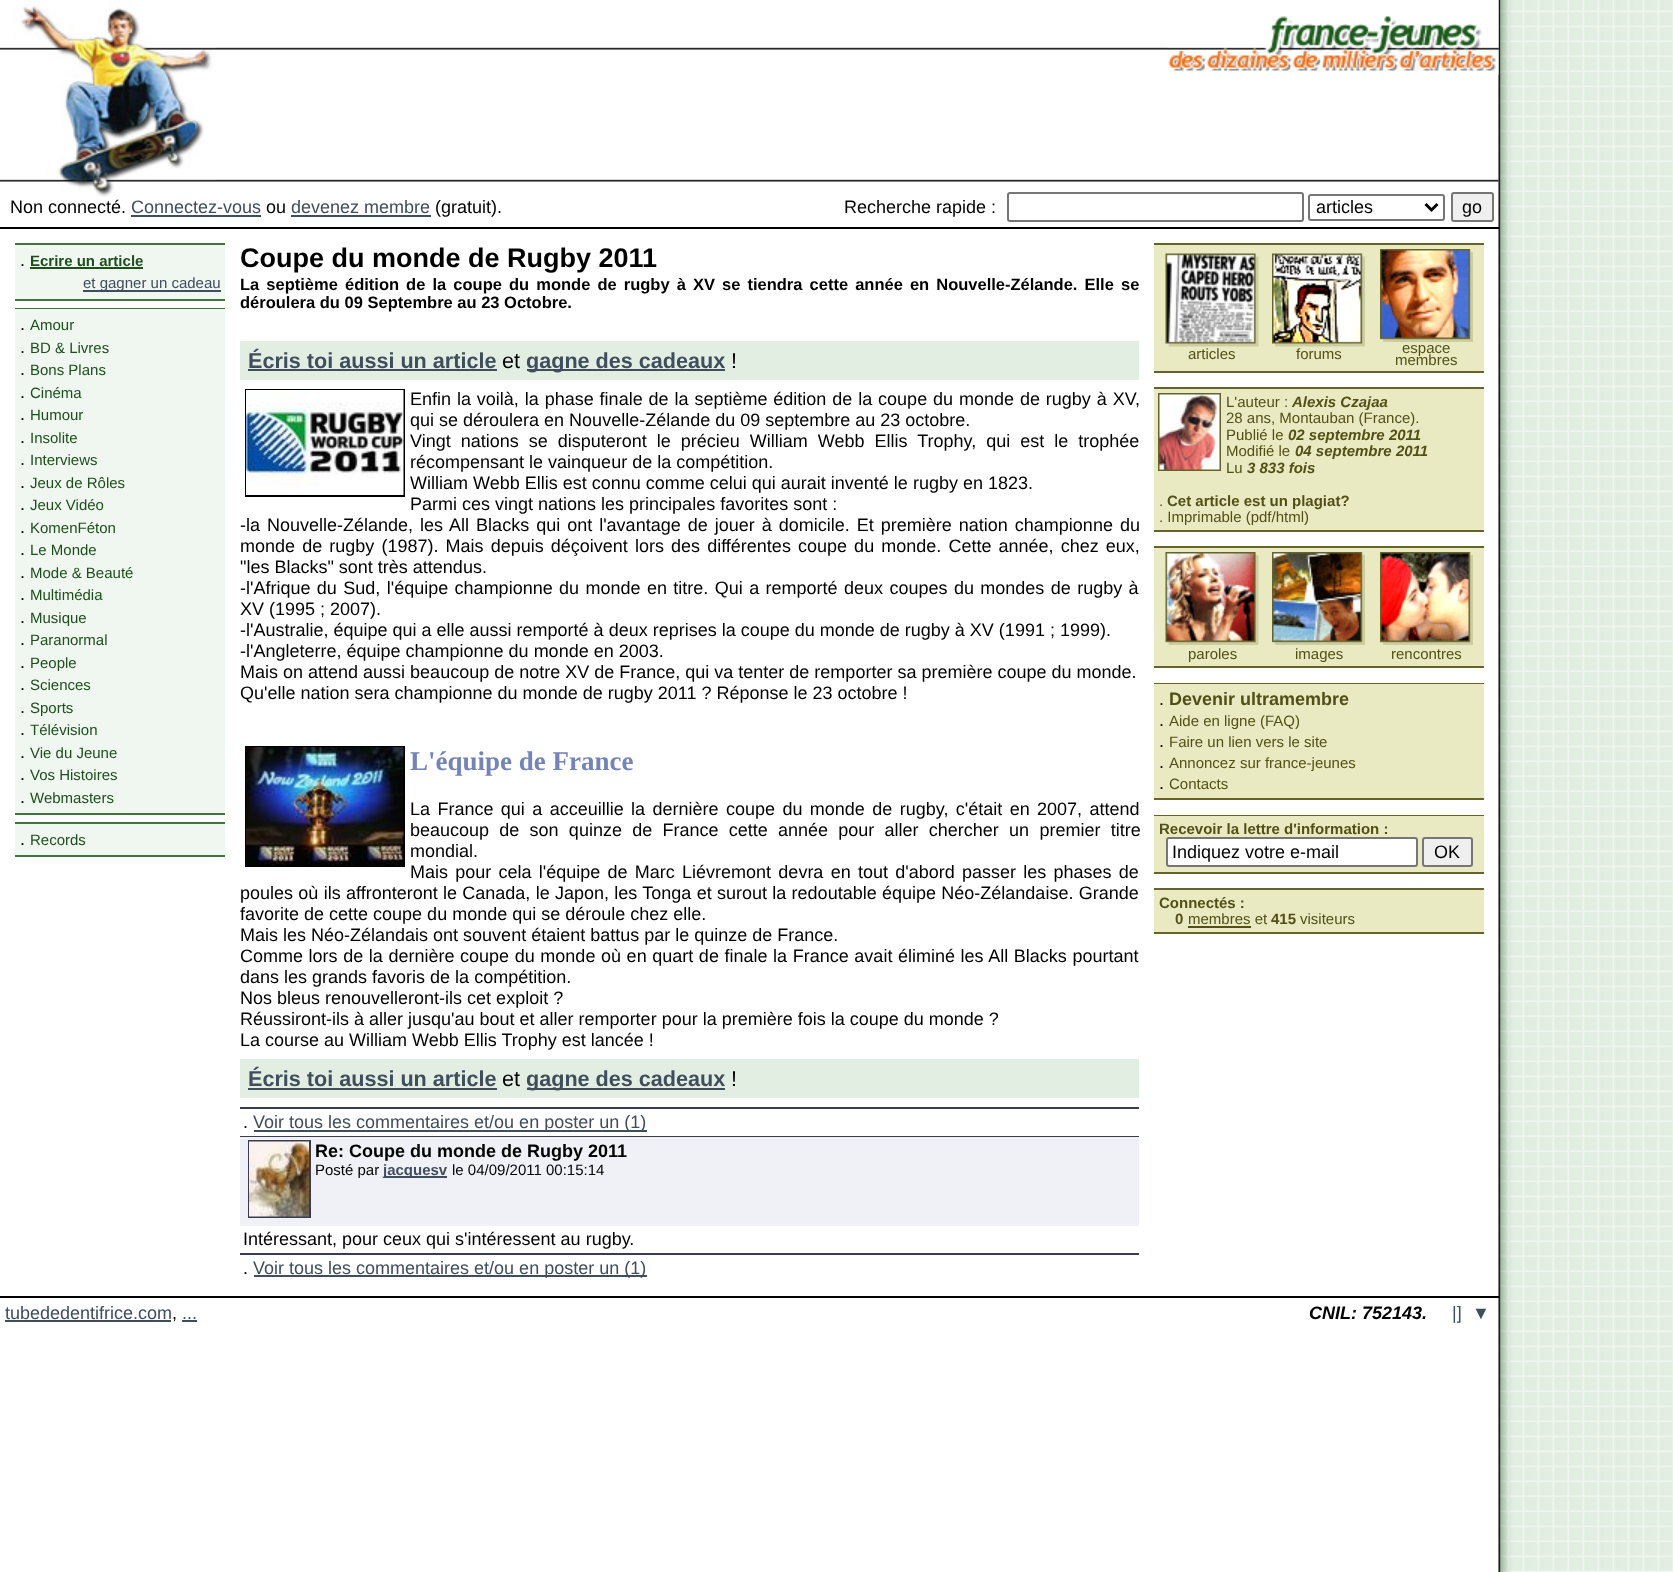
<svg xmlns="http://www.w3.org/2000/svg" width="1673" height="1572">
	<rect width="100%" height="100%" fill="#FFFFFF" />
	<image x="0" y="0" width="216" height="197" href="assets/img1.png" />
	<image x="216" y="47" width="1283" height="135" href="assets/img2.png" />
	<rect x="0" y="227" width="1499" height="2" fill="#000000" />
	<rect x="0" y="1296" width="1499" height="2" fill="#000000" />
	<image x="1498" y="0" width="14" height="1572" href="assets/img14.png" />
	<image x="1167" y="0" width="332" height="75" href="assets/img3.png" />
	<text x="10" y="213" font-family="Liberation Sans" font-size="18" fill="#000000">Non connecté.</text>
	<text x="131" y="213" font-family="Liberation Sans" font-size="18" fill="#3F4D5C">Connectez-vous</text>
	<rect x="131" y="215" width="130" height="2" fill="#3F4D5C" />
	<text x="266" y="213" font-family="Liberation Sans" font-size="18" fill="#000000">ou</text>
	<text x="291" y="213" font-family="Liberation Sans" font-size="18" fill="#3F4D5C">devenez membre</text>
	<rect x="291" y="215" width="140" height="2" fill="#3F4D5C" />
	<g font-family="Liberation Sans" font-size="18" fill="#000000">
		<text x="435" y="213">(gratuit).</text>
		<text x="844" y="213">Recherche rapide :</text>
	</g>
	<rect x="1008" y="193" width="295" height="28" rx="2" fill="none" stroke="#767676" stroke-width="2" />
	<rect x="1309" y="195" width="135" height="25" rx="2" fill="none" stroke="#767676" stroke-width="2" />
	<path d="M1425.5 204L1431.5 210L1437.5 204" fill="none" stroke="#000000" stroke-width="3" />
	<text x="1316" y="213" font-family="Liberation Sans" font-size="18" fill="#000000">articles</text>
	<rect x="1452" y="193" width="41" height="28" rx="2" fill="#EFEFEF" stroke="#767676" stroke-width="2" />
	<text x="1462" y="213" font-family="Liberation Sans" font-size="18" fill="#000000">go</text>
	<rect x="15" y="243" width="210" height="2" fill="#407340" />
	<rect x="15" y="245" width="210" height="54" fill="#F0F6F0" />
	<text x="20" y="266" font-family="Liberation Sans" font-size="18" fill="#000000">.</text>
	<text x="30" y="266" font-family="Liberation Sans" font-size="15" font-weight="700" fill="#1B501B">Ecrire un article</text>
	<rect x="30" y="267" width="113" height="2" fill="#1B501B" />
	<rect x="83" y="290" width="138" height="2" fill="#3F4D5C" />
	<text x="83" y="288" font-family="Liberation Sans" font-size="15" fill="#3F4D5C">et gagner un cadeau</text>
	<rect x="15" y="299" width="210" height="2" fill="#407340" />
	<rect x="15" y="308" width="210" height="1" fill="#407340" />
	<rect x="15" y="309" width="210" height="504" fill="#F0F6F0" />
	<text x="20" y="330" font-family="Liberation Sans" font-size="18" fill="#000000">.</text>
	<text x="30" y="330" font-family="Liberation Sans" font-size="15" fill="#1B501B">Amour</text>
	<text x="20" y="353" font-family="Liberation Sans" font-size="18" fill="#000000">.</text>
	<text x="30" y="353" font-family="Liberation Sans" font-size="15" fill="#1B501B">BD &amp; Livres</text>
	<text x="20" y="375" font-family="Liberation Sans" font-size="18" fill="#000000">.</text>
	<text x="30" y="375" font-family="Liberation Sans" font-size="15" fill="#1B501B">Bons Plans</text>
	<text x="20" y="398" font-family="Liberation Sans" font-size="18" fill="#000000">.</text>
	<text x="30" y="398" font-family="Liberation Sans" font-size="15" fill="#1B501B">Cinéma</text>
	<text x="20" y="420" font-family="Liberation Sans" font-size="18" fill="#000000">.</text>
	<text x="30" y="420" font-family="Liberation Sans" font-size="15" fill="#1B501B">Humour</text>
	<text x="20" y="443" font-family="Liberation Sans" font-size="18" fill="#000000">.</text>
	<text x="30" y="443" font-family="Liberation Sans" font-size="15" fill="#1B501B">Insolite</text>
	<text x="20" y="465" font-family="Liberation Sans" font-size="18" fill="#000000">.</text>
	<text x="30" y="465" font-family="Liberation Sans" font-size="15" fill="#1B501B">Interviews</text>
	<text x="20" y="488" font-family="Liberation Sans" font-size="18" fill="#000000">.</text>
	<text x="30" y="488" font-family="Liberation Sans" font-size="15" fill="#1B501B">Jeux de Rôles</text>
	<text x="20" y="510" font-family="Liberation Sans" font-size="18" fill="#000000">.</text>
	<text x="30" y="510" font-family="Liberation Sans" font-size="15" fill="#1B501B">Jeux Vidéo</text>
	<text x="20" y="533" font-family="Liberation Sans" font-size="18" fill="#000000">.</text>
	<text x="30" y="533" font-family="Liberation Sans" font-size="15" fill="#1B501B">KomenFéton</text>
	<text x="20" y="555" font-family="Liberation Sans" font-size="18" fill="#000000">.</text>
	<text x="30" y="555" font-family="Liberation Sans" font-size="15" fill="#1B501B">Le Monde</text>
	<text x="20" y="578" font-family="Liberation Sans" font-size="18" fill="#000000">.</text>
	<text x="30" y="578" font-family="Liberation Sans" font-size="15" fill="#1B501B">Mode &amp; Beauté</text>
	<text x="20" y="600" font-family="Liberation Sans" font-size="18" fill="#000000">.</text>
	<text x="30" y="600" font-family="Liberation Sans" font-size="15" fill="#1B501B">Multimédia</text>
	<text x="20" y="623" font-family="Liberation Sans" font-size="18" fill="#000000">.</text>
	<text x="30" y="623" font-family="Liberation Sans" font-size="15" fill="#1B501B">Musique</text>
	<text x="20" y="645" font-family="Liberation Sans" font-size="18" fill="#000000">.</text>
	<text x="30" y="645" font-family="Liberation Sans" font-size="15" fill="#1B501B">Paranormal</text>
	<text x="20" y="668" font-family="Liberation Sans" font-size="18" fill="#000000">.</text>
	<text x="30" y="668" font-family="Liberation Sans" font-size="15" fill="#1B501B">People</text>
	<text x="20" y="690" font-family="Liberation Sans" font-size="18" fill="#000000">.</text>
	<text x="30" y="690" font-family="Liberation Sans" font-size="15" fill="#1B501B">Sciences</text>
	<text x="20" y="713" font-family="Liberation Sans" font-size="18" fill="#000000">.</text>
	<text x="30" y="713" font-family="Liberation Sans" font-size="15" fill="#1B501B">Sports</text>
	<text x="20" y="735" font-family="Liberation Sans" font-size="18" fill="#000000">.</text>
	<text x="30" y="735" font-family="Liberation Sans" font-size="15" fill="#1B501B">Télévision</text>
	<text x="20" y="758" font-family="Liberation Sans" font-size="18" fill="#000000">.</text>
	<text x="30" y="758" font-family="Liberation Sans" font-size="15" fill="#1B501B">Vie du Jeune</text>
	<text x="20" y="780" font-family="Liberation Sans" font-size="18" fill="#000000">.</text>
	<text x="30" y="780" font-family="Liberation Sans" font-size="15" fill="#1B501B">Vos Histoires</text>
	<text x="20" y="803" font-family="Liberation Sans" font-size="18" fill="#000000">.</text>
	<text x="30" y="803" font-family="Liberation Sans" font-size="15" fill="#1B501B">Webmasters</text>
	<rect x="15" y="813" width="210" height="2" fill="#407340" />
	<rect x="15" y="822" width="210" height="2" fill="#407340" />
	<rect x="15" y="824" width="210" height="31" fill="#F0F6F0" />
	<text x="20" y="845" font-family="Liberation Sans" font-size="18" fill="#000000">.</text>
	<text x="30" y="845" font-family="Liberation Sans" font-size="15" fill="#1B501B">Records</text>
	<rect x="15" y="855" width="210" height="2" fill="#407340" />
	<text x="240" y="267" font-family="Liberation Sans" font-size="27" font-weight="700" fill="#000000">Coupe du monde de Rugby 2011</text>
	<g font-family="Liberation Sans" font-size="16.5" font-weight="700" fill="#000000">
		<text x="240" y="290" word-spacing="2.5">La septième édition de la coupe du monde de rugby à XV se tiendra cette année en Nouvelle-Zélande. Elle se</text>
		<text x="240" y="308">déroulera du 09 Septembre au 23 Octobre.</text>
	</g>
	<rect x="240" y="341" width="899" height="39" fill="#E1EEE1" />
	<text x="248" y="368" font-family="Liberation Sans" font-size="21.6" font-weight="700" fill="#3F4D5C">Écris toi aussi un article</text>
	<rect x="248" y="369" width="249" height="2" fill="#3F4D5C" />
	<text x="502" y="368" font-family="Liberation Sans" font-size="21.6" fill="#000000">et</text>
	<rect x="527" y="369" width="198" height="2" fill="#3F4D5C" />
	<text x="526" y="368" font-family="Liberation Sans" font-size="21.6" font-weight="700" fill="#3F4D5C">gagne des cadeaux</text>
	<text x="731" y="368" font-family="Liberation Sans" font-size="21.6" fill="#000000">!</text>
	<rect x="246" y="390" width="158" height="106" fill="none" stroke="#000000" stroke-width="2" />
	<image x="246" y="390" width="158" height="105" href="assets/img4.png" />
	<g font-family="Liberation Sans" font-size="18" fill="#000000">
		<text x="410" y="405" word-spacing="0.9">Enfin la voilà, la phase finale de la septième édition de la coupe du monde de rugby à XV,</text>
		<text x="410" y="426">qui se déroulera en Nouvelle-Zélande du 09 septembre au 23 octobre.</text>
		<text x="410" y="447" word-spacing="5">Vingt nations se disputeront le précieu William Webb Ellis Trophy, qui est le trophée</text>
		<text x="410" y="468">récompensant le vainqueur de la compétition.</text>
		<text x="410" y="489">William Webb Ellis est connu comme celui qui aurait inventé le rugby en 1823.</text>
		<text x="410" y="510">Parmi ces vingt nations les principales favorites sont :</text>
		<text x="240" y="531" word-spacing="2">-la Nouvelle-Zélande, les All Blacks qui ont l'avantage de jouer à domicile. Et première nation championne du</text>
		<text x="240" y="552" word-spacing="2.1">monde de rugby (1987). Mais depuis déçoivent lors des différentes coupe du monde. Cette année, chez eux,</text>
		<text x="240" y="573">"les Blacks" sont très attendus.</text>
		<text x="240" y="594" word-spacing="1.4">-l'Afrique du Sud, l'équipe championne du monde en titre. Qui a remporté deux coupes du mondes de rugby à</text>
		<text x="240" y="615">XV (1995 ; 2007).</text>
		<text x="240" y="636">-l'Australie, équipe qui a elle aussi remporté à deux reprises la coupe du monde de rugby à XV (1991 ; 1999).</text>
		<text x="240" y="657">-l'Angleterre, équipe championne du monde en 2003.</text>
		<text x="240" y="678">Mais on attend aussi beaucoup de notre XV de France, qui va tenter de remporter sa première coupe du monde.</text>
		<text x="240" y="699">Qu'elle nation sera championne du monde de rugby 2011 ? Réponse le 23 octobre !</text>
	</g>
	<rect x="246" y="747" width="158" height="119" fill="none" stroke="#000000" stroke-width="2" />
	<image x="246" y="747" width="158" height="119" href="assets/img5.png" />
	<text x="410" y="770" font-family="Liberation Serif" font-size="27" font-weight="700" fill="#7284B9">L'équipe de France</text>
	<g font-family="Liberation Sans" font-size="18" fill="#000000">
		<text x="410" y="815" word-spacing="2.4">La France qui a acceuillie la dernière coupe du monde de rugby, c'était en 2007, attend</text>
		<text x="410" y="836" word-spacing="5.25">beaucoup de son quinze de France cette année pour aller chercher un premier titre</text>
		<text x="410" y="857">mondial.</text>
		<text x="410" y="878" word-spacing="2.25">Mais pour cela l'équipe de Marc Liévremont devra en tout d'abord passer les phases de</text>
		<text x="240" y="899" word-spacing="0.3">poules où ils affronteront le Canada, le Japon, les Tonga et surout la redoutable équipe Néo-Zélandaise. Grande</text>
		<text x="240" y="920">favorite de cette coupe du monde qui se déroule chez elle.</text>
		<text x="240" y="941">Mais les Néo-Zélandais ont souvent étaient battus par le quinze de France.</text>
		<text x="240" y="962" word-spacing="0.6">Comme lors de la dernière coupe du monde où en quart de finale la France avait éliminé les All Blacks pourtant</text>
		<text x="240" y="983">dans les grands favoris de la compétition.</text>
		<text x="240" y="1004">Nos bleus renouvelleront-ils cet exploit ?</text>
		<text x="240" y="1025">Réussiront-ils à aller jusqu'au bout et aller remporter pour la première fois la coupe du monde ?</text>
		<text x="240" y="1046">La course au William Webb Ellis Trophy est lancée !</text>
	</g>
	<rect x="240" y="1059" width="899" height="39" fill="#E1EEE1" />
	<text x="248" y="1086" font-family="Liberation Sans" font-size="21.6" font-weight="700" fill="#3F4D5C">Écris toi aussi un article</text>
	<rect x="248" y="1088" width="249" height="2" fill="#3F4D5C" />
	<text x="502" y="1086" font-family="Liberation Sans" font-size="21.6" fill="#000000">et</text>
	<rect x="527" y="1088" width="198" height="2" fill="#3F4D5C" />
	<text x="526" y="1086" font-family="Liberation Sans" font-size="21.6" font-weight="700" fill="#3F4D5C">gagne des cadeaux</text>
	<text x="731" y="1086" font-family="Liberation Sans" font-size="21.6" fill="#000000">!</text>
	<rect x="240" y="1107" width="899" height="2" fill="#373C4F" />
	<text x="243" y="1128" font-family="Liberation Sans" font-size="18" fill="#000000">.</text>
	<rect x="254" y="1130" width="393" height="2" fill="#3F4D5C" />
	<text x="253" y="1128" font-family="Liberation Sans" font-size="18" fill="#3F4D5C">Voir tous les commentaires et/ou en poster un (1)</text>
	<rect x="240" y="1136" width="899" height="1" fill="#373C4F" />
	<rect x="240" y="1137" width="899" height="89" fill="#F0F1F6" />
	<rect x="249" y="1141" width="61" height="76" fill="none" stroke="#373C4F" stroke-width="2" />
	<image x="249" y="1141" width="60" height="76" href="assets/img6.png" />
	<text x="315" y="1157" font-family="Liberation Sans" font-size="18" font-weight="700" fill="#000000">Re: Coupe du monde de Rugby 2011</text>
	<text x="315" y="1175" font-family="Liberation Sans" font-size="15" fill="#000000">Posté par</text>
	<rect x="384" y="1176" width="63" height="2" fill="#3F4D5C" />
	<text x="383" y="1175" font-family="Liberation Sans" font-size="15" font-weight="700" fill="#3F4D5C">jacquesv</text>
	<text x="452" y="1175" font-family="Liberation Sans" font-size="15" fill="#000000">le 04/09/2011 00:15:14</text>
	<text x="243" y="1245" font-family="Liberation Sans" font-size="18" fill="#000000">Intéressant, pour ceux qui s'intéressent au rugby.</text>
	<rect x="240" y="1253" width="899" height="2" fill="#373C4F" />
	<text x="243" y="1274" font-family="Liberation Sans" font-size="18" fill="#000000">.</text>
	<rect x="254" y="1275" width="393" height="2" fill="#3F4D5C" />
	<text x="253" y="1274" font-family="Liberation Sans" font-size="18" fill="#3F4D5C">Voir tous les commentaires et/ou en poster un (1)</text>
	<rect x="1154" y="243" width="330" height="2" fill="#63632A" />
	<rect x="1154" y="245" width="330" height="126" fill="#EAEAC2" />
	<image x="1165" y="253" width="94" height="94" href="assets/img7.png" />
	<text x="1188" y="359" font-family="Liberation Sans" font-size="15" fill="#515117">articles</text>
	<image x="1272" y="253" width="93" height="94" href="assets/img8.png" />
	<text x="1296" y="359" font-family="Liberation Sans" font-size="15" fill="#515117">forums</text>
	<image x="1380" y="249" width="93" height="93" href="assets/img9.png" />
	<g font-family="Liberation Sans" font-size="15" fill="#515117">
		<text x="1402" y="353">espace</text>
		<text x="1395" y="365">membres</text>
	</g>
	<rect x="1154" y="371" width="330" height="2" fill="#63632A" />
	<rect x="1154" y="387" width="330" height="2" fill="#63632A" />
	<rect x="1154" y="389" width="330" height="141" fill="#EAEAC2" />
	<rect x="1159" y="394" width="61" height="76" fill="none" stroke="#63632A" stroke-width="2" />
	<image x="1159" y="394" width="61" height="76" href="assets/img10.png" />
	<text x="1226" y="407" font-family="Liberation Sans" font-size="15" fill="#515117">L'auteur :</text>
	<text x="1292" y="407" font-family="Liberation Sans" font-size="15" font-weight="700" font-style="italic" fill="#515117">Alexis Czajaa</text>
	<g font-family="Liberation Sans" font-size="15" fill="#515117">
		<text x="1226" y="423">28 ans, Montauban (France).</text>
		<text x="1226" y="440">Publié le</text>
	</g>
	<text x="1288" y="440" font-family="Liberation Sans" font-size="15" font-weight="700" font-style="italic" fill="#515117">02 septembre 2011</text>
	<text x="1226" y="456" font-family="Liberation Sans" font-size="15" fill="#515117">Modifié le</text>
	<text x="1295" y="456" font-family="Liberation Sans" font-size="15" font-weight="700" font-style="italic" fill="#515117">04 septembre 2011</text>
	<text x="1226" y="473" font-family="Liberation Sans" font-size="15" fill="#515117">Lu</text>
	<text x="1247" y="473" font-family="Liberation Sans" font-size="15" font-weight="700" font-style="italic" fill="#515117">3 833 fois</text>
	<text x="1159" y="506" font-family="Liberation Sans" font-size="15" fill="#515117">.</text>
	<text x="1167" y="506" font-family="Liberation Sans" font-size="15" font-weight="700" fill="#515117">Cet article est un plagiat?</text>
	<text x="1159" y="522" font-family="Liberation Sans" font-size="15" fill="#515117">. Imprimable (pdf/html)</text>
	<rect x="1154" y="530" width="330" height="2" fill="#63632A" />
	<rect x="1154" y="546" width="330" height="2" fill="#63632A" />
	<rect x="1154" y="548" width="330" height="118" fill="#EAEAC2" />
	<image x="1165" y="552" width="94" height="93" href="assets/img11.png" />
	<text x="1188" y="659" font-family="Liberation Sans" font-size="15" fill="#515117">paroles</text>
	<image x="1272" y="552" width="93" height="93" href="assets/img12.png" />
	<text x="1295" y="659" font-family="Liberation Sans" font-size="15" fill="#515117">images</text>
	<image x="1380" y="552" width="93" height="93" href="assets/img13.png" />
	<text x="1391" y="659" font-family="Liberation Sans" font-size="15" fill="#515117">rencontres</text>
	<rect x="1154" y="666" width="330" height="2" fill="#63632A" />
	<rect x="1154" y="683" width="330" height="1" fill="#63632A" />
	<rect x="1154" y="684" width="330" height="114" fill="#EAEAC2" />
	<text x="1159" y="705" font-family="Liberation Sans" font-size="18" fill="#000000">.</text>
	<text x="1169" y="705" font-family="Liberation Sans" font-size="18" font-weight="700" fill="#515117">Devenir ultramembre</text>
	<text x="1159" y="726" font-family="Liberation Sans" font-size="18" fill="#000000">.</text>
	<text x="1169" y="726" font-family="Liberation Sans" font-size="15" fill="#515117">Aide en ligne (FAQ)</text>
	<text x="1159" y="747" font-family="Liberation Sans" font-size="18" fill="#000000">.</text>
	<text x="1169" y="747" font-family="Liberation Sans" font-size="15" fill="#515117">Faire un lien vers le site</text>
	<text x="1159" y="768" font-family="Liberation Sans" font-size="18" fill="#000000">.</text>
	<text x="1169" y="768" font-family="Liberation Sans" font-size="15" fill="#515117">Annoncez sur france-jeunes</text>
	<text x="1159" y="789" font-family="Liberation Sans" font-size="18" fill="#000000">.</text>
	<text x="1169" y="789" font-family="Liberation Sans" font-size="15" fill="#515117">Contacts</text>
	<rect x="1154" y="798" width="330" height="2" fill="#63632A" />
	<rect x="1154" y="815" width="330" height="1" fill="#63632A" />
	<rect x="1154" y="816" width="330" height="56" fill="#EAEAC2" />
	<text x="1159" y="834" font-family="Liberation Sans" font-size="15" font-weight="700" fill="#515117">Recevoir la lettre d'information :</text>
	<rect x="1167" y="838" width="250" height="28" rx="2" fill="#FFFFFF" stroke="#767676" stroke-width="2" />
	<text x="1172" y="858" font-family="Liberation Sans" font-size="18" fill="#000000">Indiquez votre e-mail</text>
	<rect x="1423" y="838" width="49" height="28" rx="2" fill="#EFEFEF" stroke="#767676" stroke-width="2" />
	<text x="1434" y="858" font-family="Liberation Sans" font-size="18" fill="#000000">OK</text>
	<rect x="1154" y="872" width="330" height="2" fill="#63632A" />
	<rect x="1154" y="888" width="330" height="2" fill="#63632A" />
	<rect x="1154" y="890" width="330" height="42" fill="#EAEAC2" />
	<g font-family="Liberation Sans" font-size="15" font-weight="700" fill="#515117">
		<text x="1159" y="908">Connectés :</text>
		<text x="1175" y="924">0</text>
	</g>
	<text x="1188" y="924" font-family="Liberation Sans" font-size="15" fill="#515117">membres et</text>
	<rect x="1188" y="926" width="63" height="2" fill="#515117" />
	<text x="1271" y="924" font-family="Liberation Sans" font-size="15" font-weight="700" fill="#515117">415</text>
	<text x="1300" y="924" font-family="Liberation Sans" font-size="15" fill="#515117">visiteurs</text>
	<rect x="1154" y="932" width="330" height="2" fill="#63632A" />
	<text x="5" y="1319" font-family="Liberation Sans" font-size="18" fill="#3F4D5C">tubededentifrice.com</text>
	<rect x="5" y="1320" width="166" height="2" fill="#3F4D5C" />
	<text x="172" y="1319" font-family="Liberation Sans" font-size="18" fill="#000000">,</text>
	<text x="182" y="1319" font-family="Liberation Sans" font-size="18" fill="#3F4D5C">...</text>
	<rect x="182" y="1320" width="15" height="2" fill="#3F4D5C" />
	<text x="1309" y="1319" font-family="Liberation Sans" font-size="18" font-weight="700" font-style="italic" fill="#000000">CNIL: 752143.</text>
	<g font-family="Liberation Sans" font-size="18" fill="#3F4D5C">
		<text x="1452" y="1319">|]</text>
		<text x="1472" y="1319">▼</text>
	</g>
	<image x="1512" y="0" width="161" height="1572" href="assets/img15.png" />
</svg>
